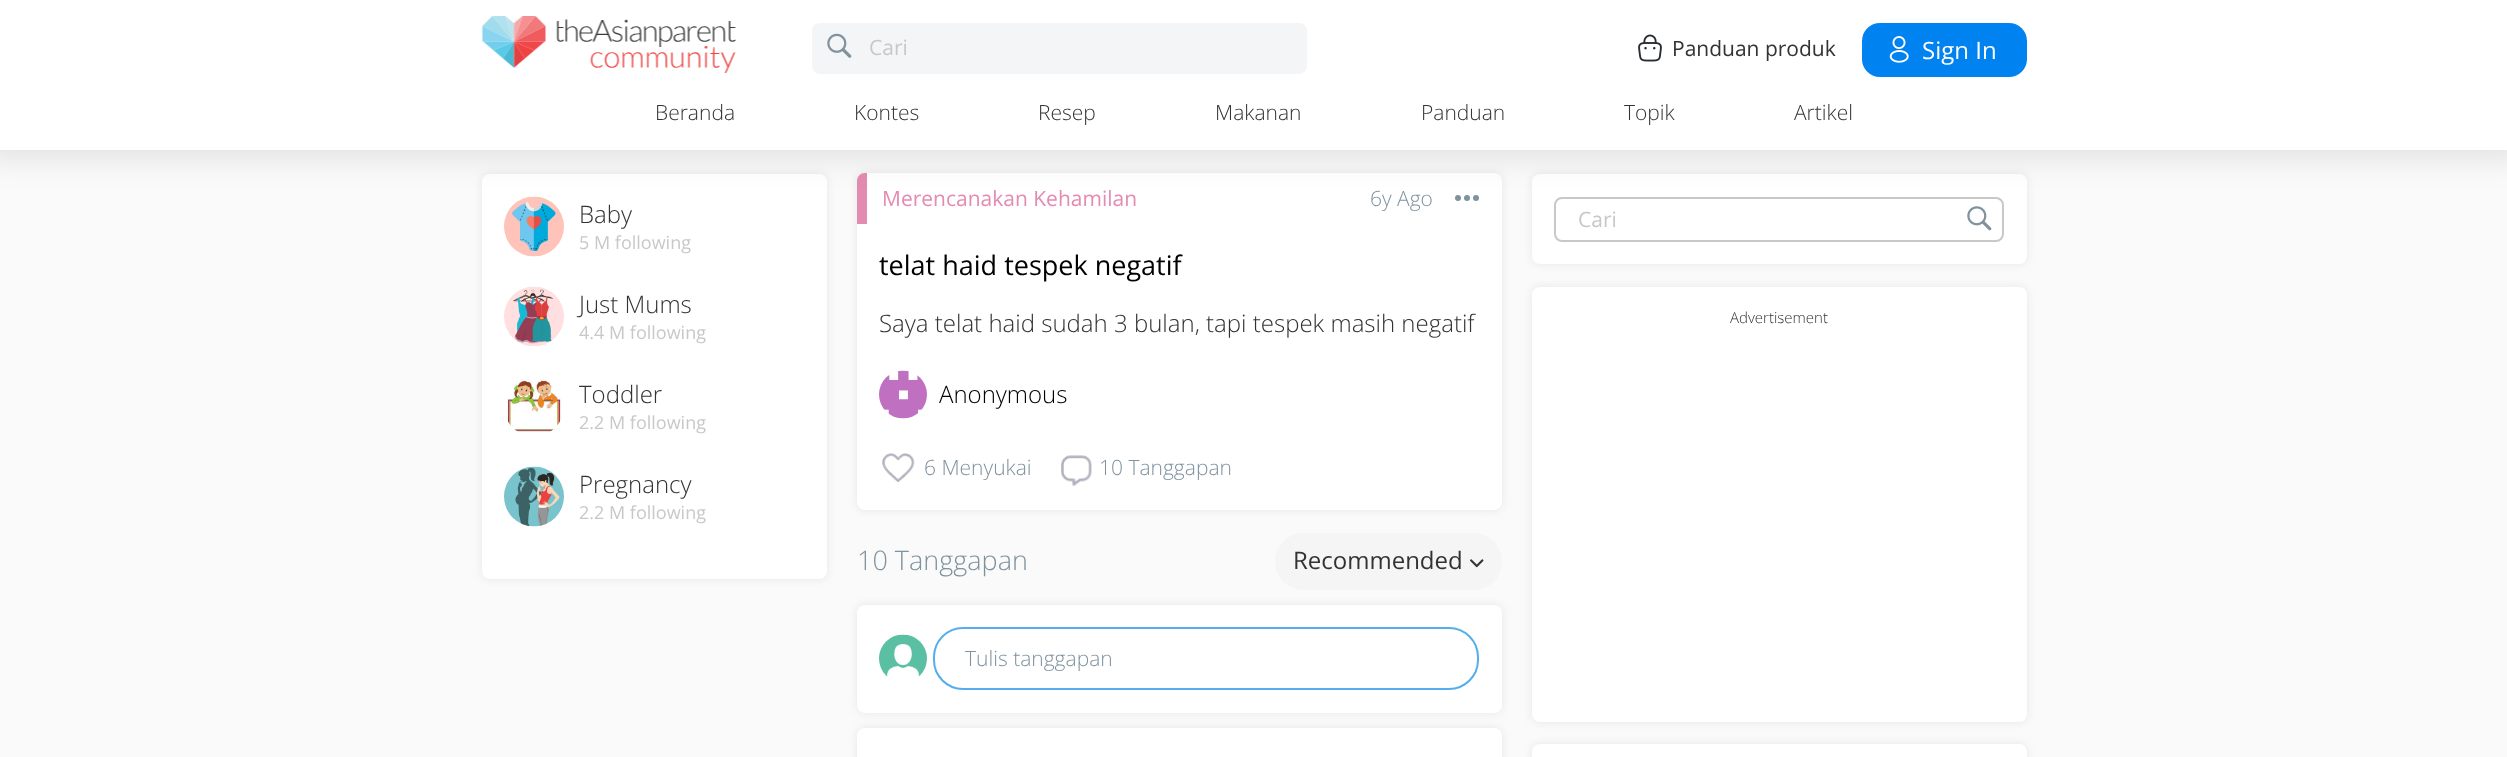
<svg xmlns="http://www.w3.org/2000/svg" width="2507" height="757">
	<rect width="100%" height="100%" fill="#FAFAFA" />
	<rect x="482" y="174" width="345" height="405" rx="8" fill="#E6E6E6" filter="blur(4px)" />
	<rect x="482" y="174" width="345" height="405" rx="8" fill="#FFFFFF" />
	<image x="504" y="196" width="60" height="61" href="assets/img5.png" />
	<rect x="857" y="173" width="645" height="337" rx="8" fill="#E6E6E6" filter="blur(4px)" />
	<rect x="857" y="173" width="645" height="337" rx="8" fill="#FFFFFF" />
	<path d="M865 173H867V224H857V181C857 176.5 860.5 173 865 173Z" fill="#E48BB1" />
	<circle cx="1458" cy="198" r="3" fill="#7F929E" />
	<circle cx="1467" cy="198" r="3" fill="#7F929E" />
	<circle cx="1476" cy="198" r="3" fill="#7F929E" />
	<rect x="1532" y="174" width="495" height="90" rx="8" fill="#E6E6E6" filter="blur(4px)" />
	<rect x="1532" y="174" width="495" height="90" rx="8" fill="#FFFFFF" />
	<rect x="1555" y="198" width="448" height="43" rx="7" fill="none" stroke="#C8C8C8" stroke-width="2" />
	<rect x="-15" y="-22" width="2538" height="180" fill="#000000" fill-opacity="0.1" filter="blur(15px)" />
	<rect x="0" y="0" width="2507" height="150" fill="#FFFFFF" />
	<image x="481" y="16" width="255" height="57" href="assets/img1.png" />
	<rect x="812" y="23" width="495" height="51" rx="8" fill="#F4F5F7" />
	<image x="827" y="33" width="25" height="25" href="assets/img2.png" />
	<text x="869" y="55" font-family="Open Sans" font-size="21" fill="#C8C8C8">Cari</text>
	<image x="1638" y="34" width="24" height="28" href="assets/img3.png" />
	<text x="1672" y="56" font-family="Open Sans" font-size="21" fill="#333333">Panduan produk</text>
	<rect x="1862" y="23" width="165" height="54" rx="18" fill="#0182F1" />
	<image x="1889" y="36" width="20" height="27" href="assets/img4.png" />
	<text x="1922" y="59" font-family="Open Sans" font-size="24" fill="#FFFFFF">Sign In</text>
	<g font-family="Open Sans" font-size="21" font-weight="300" fill="#333333">
		<text x="655" y="120">Beranda</text>
		<text x="854" y="120">Kontes</text>
		<text x="1038" y="120">Resep</text>
		<text x="1215" y="120">Makanan</text>
		<text x="1421" y="120">Panduan</text>
		<text x="1624" y="120">Topik</text>
		<text x="1794" y="120">Artikel</text>
	</g>
	<text x="579" y="223" font-family="Open Sans" font-size="24" font-weight="300" fill="#333333">Baby</text>
	<text x="579" y="249" font-family="Open Sans" font-size="18" fill="#C8C8C8">5 M following</text>
	<image x="504" y="286" width="60" height="61" href="assets/img6.png" />
	<text x="579" y="313" font-family="Open Sans" font-size="24" font-weight="300" fill="#333333">Just Mums</text>
	<text x="579" y="339" font-family="Open Sans" font-size="18" fill="#C8C8C8">4.4 M following</text>
	<image x="506" y="378" width="56" height="54" href="assets/img7.png" />
	<text x="579" y="403" font-family="Open Sans" font-size="24" font-weight="300" fill="#333333">Toddler</text>
	<text x="579" y="429" font-family="Open Sans" font-size="18" fill="#C8C8C8">2.2 M following</text>
	<image x="504" y="466" width="60" height="61" href="assets/img8.png" />
	<text x="579" y="493" font-family="Open Sans" font-size="24" font-weight="300" fill="#333333">Pregnancy</text>
	<text x="579" y="519" font-family="Open Sans" font-size="18" fill="#C8C8C8">2.2 M following</text>
	<text x="882" y="206" font-family="Open Sans" font-size="21" fill="#E48BB1">Merencanakan Kehamilan</text>
	<text x="1370" y="206" font-family="Open Sans" font-size="21" font-weight="300" fill="#7F929E">6y Ago</text>
	<text x="879" y="275" font-family="Open Sans" font-size="27" fill="#000000">telat haid tespek negatif</text>
	<text x="879" y="332" font-family="Open Sans" font-size="24" font-weight="300" fill="#333333">Saya telat haid sudah 3 bulan, tapi tespek masih negatif</text>
	<image x="879" y="370" width="48" height="49" href="assets/img9.png" />
	<text x="939" y="403" font-family="Open Sans" font-size="24" font-weight="300" fill="#000000">Anonymous</text>
	<image x="882" y="453" width="33" height="29" href="assets/img10.png" />
	<text x="924" y="475" font-family="Open Sans" font-size="21" font-weight="300" fill="#7F929E">6 Menyukai</text>
	<image x="1061" y="455" width="31" height="32" href="assets/img11.png" />
	<text x="1099" y="475" font-family="Open Sans" font-size="21" font-weight="300" fill="#7F929E">10 Tanggapan</text>
	<text x="857" y="570" font-family="Open Sans" font-size="27" font-weight="300" fill="#7F929E">10 Tanggapan</text>
	<rect x="1275" y="533" width="227" height="57" rx="28.5" fill="#F5F5F5" />
	<text x="1293" y="569" font-family="Open Sans" font-size="24" fill="#333333">Recommended</text>
	<image x="1470" y="559" width="14" height="9" href="assets/img12.png" />
	<rect x="857" y="605" width="645" height="108" rx="8" fill="#E6E6E6" filter="blur(4px)" />
	<rect x="857" y="605" width="645" height="108" rx="8" fill="#FFFFFF" />
	<image x="879" y="634" width="48" height="43" href="assets/img13.png" />
	<rect x="934" y="628" width="544" height="61" rx="29" fill="none" stroke="#54ADED" stroke-width="2" />
	<text x="965" y="666" font-family="Open Sans" font-size="21" font-weight="300" fill="#7F929E">Tulis tanggapan</text>
	<rect x="857" y="728" width="645" height="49" rx="8" fill="#E6E6E6" filter="blur(4px)" />
	<rect x="857" y="728" width="645" height="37" rx="8" fill="#FFFFFF" />
	<text x="1578" y="227" font-family="Open Sans" font-size="21" fill="#C8C8C8">Cari</text>
	<image x="1967" y="206" width="25" height="25" href="assets/img14.png" />
	<rect x="1532" y="287" width="495" height="435" rx="8" fill="#E6E6E6" filter="blur(4px)" />
	<rect x="1532" y="287" width="495" height="435" rx="8" fill="#FFFFFF" />
	<text x="1730" y="323" font-family="Open Sans" font-size="15" font-weight="300" fill="#333333">Advertisement</text>
	<rect x="1532" y="744" width="495" height="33" rx="8" fill="#E6E6E6" filter="blur(4px)" />
	<rect x="1532" y="744" width="495" height="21" rx="8" fill="#FFFFFF" />
</svg>
